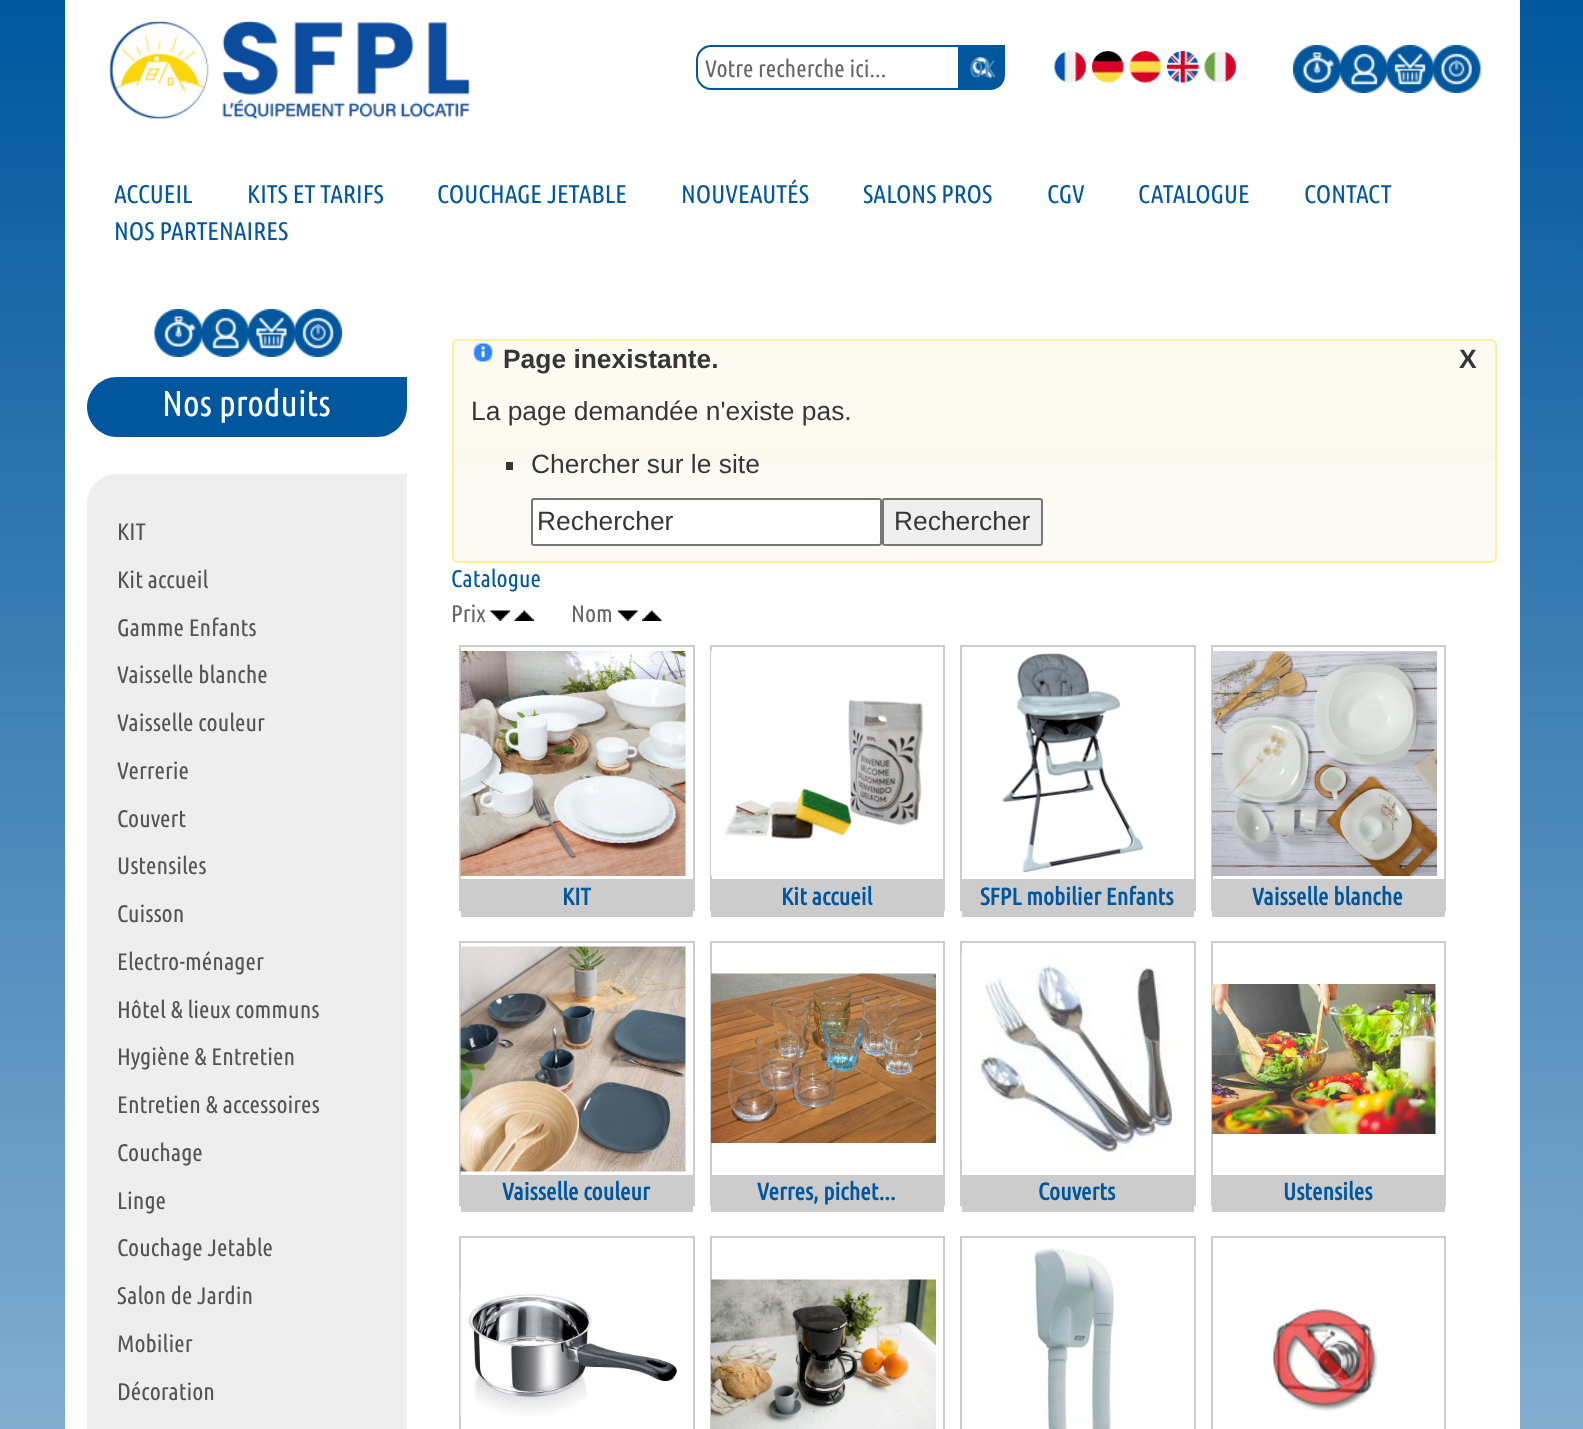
<svg xmlns="http://www.w3.org/2000/svg" width="1583" height="1429">
	<defs>
		<linearGradient id="g1" gradientUnits="userSpaceOnUse" x1="792" y1="0" x2="792" y2="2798"><stop offset="0" stop-color="#00579D" /><stop offset="1" stop-color="#FFFFFF" /></linearGradient>
	</defs>
	<rect width="100%" height="100%" fill="#FFFFFF" />
	<rect x="0" y="0" width="1583" height="1429" fill="url(#g1)" />
	<rect x="65" y="0" width="1455" height="1429" fill="#FFFFFF" />
	<image x="109" y="20" width="361" height="99" href="assets/img1.png" />
	<path d="M711 46H959V89H711C703.5 89 697 82.5 697 75V60C697 52.5 703.5 46 711 46Z" fill="none" stroke="#00579D" stroke-width="2" />
	<text x="705" y="77" font-family="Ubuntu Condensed" font-size="24" fill="#666666">Votre recherche ici...</text>
	<path d="M960 45H1005V75C1005 83.5 998.5 90 990 90H960Z" fill="#00579D" />
	<image x="972" y="57" width="21" height="21" href="assets/img2.png" />
	<text x="969" y="77" font-family="Ubuntu Condensed" font-size="24" fill="#4D8ABB">OK</text>
	<image x="1054" y="51" width="32" height="32" href="assets/img3.png" />
	<image x="1092" y="51" width="32" height="32" href="assets/img4.png" />
	<image x="1129" y="51" width="32" height="32" href="assets/img5.png" />
	<image x="1167" y="51" width="32" height="32" href="assets/img6.png" />
	<image x="1204" y="51" width="32" height="32" href="assets/img7.png" />
	<image x="1293" y="45" width="48" height="48" href="assets/img8.png" />
	<image x="1339" y="45" width="49" height="48" href="assets/img9.png" />
	<image x="1386" y="45" width="48" height="48" href="assets/img10.png" />
	<image x="1432" y="45" width="49" height="48" href="assets/img11.png" />
	<g font-family="Ubuntu Condensed" font-size="25.5" fill="#00579D">
		<text x="114" y="203">ACCUEIL</text>
		<text x="247" y="203">KITS ET TARIFS</text>
		<text x="437" y="203">COUCHAGE JETABLE</text>
		<text x="681" y="203">NOUVEAUTÉS</text>
		<text x="863" y="203">SALONS PROS</text>
		<text x="1047" y="203">CGV</text>
		<text x="1138" y="203">CATALOGUE</text>
		<text x="1304" y="203">CONTACT</text>
		<text x="114" y="240">NOS PARTENAIRES</text>
	</g>
	<image x="154" y="309" width="49" height="48" href="assets/img12.png" />
	<image x="201" y="309" width="48" height="48" href="assets/img13.png" />
	<image x="247" y="309" width="49" height="48" href="assets/img14.png" />
	<image x="294" y="309" width="48" height="48" href="assets/img15.png" />
	<path d="M117 377H407V407C407 423.5 393.5 437 377 437H117C100.5 437 87 423.5 87 407C87 390.5 100.5 377 117 377Z" fill="#00579D" />
	<text x="162" y="416" font-family="Ubuntu Condensed" font-size="36" fill="#FFFFFF">Nos produits</text>
	<path d="M117 474H407V1429C407 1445.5 393.5 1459 377 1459H117C100.5 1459 87 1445.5 87 1429V504C87 487.5 100.5 474 117 474Z" fill="#EEEEEE" />
	<g font-family="Ubuntu Condensed" font-size="24" fill="#545454">
		<text x="117" y="540">KIT</text>
		<text x="117" y="588">Kit accueil</text>
		<text x="117" y="636">Gamme Enfants</text>
		<text x="117" y="683">Vaisselle blanche</text>
		<text x="117" y="731">Vaisselle couleur</text>
		<text x="117" y="779">Verrerie</text>
		<text x="117" y="827">Couvert</text>
		<text x="117" y="874">Ustensiles</text>
		<text x="117" y="922">Cuisson</text>
		<text x="117" y="970">Electro-ménager</text>
		<text x="117" y="1018">Hôtel &amp; lieux communs</text>
		<text x="117" y="1065">Hygiène &amp; Entretien</text>
		<text x="117" y="1113">Entretien &amp; accessoires</text>
		<text x="117" y="1161">Couchage</text>
		<text x="117" y="1209">Linge</text>
		<text x="117" y="1256">Couchage Jetable</text>
		<text x="117" y="1304">Salon de Jardin</text>
		<text x="117" y="1352">Mobilier</text>
		<text x="117" y="1400">Décoration</text>
	</g>
	<image x="451" y="340" width="1046" height="222" href="assets/img16.png" />
	<rect x="453" y="340" width="1043" height="222" rx="5" fill="none" stroke="#FCEFA1" stroke-width="2" />
	<image x="473" y="343" width="20" height="19" href="assets/img17.png" />
	<g font-family="Liberation Sans" font-size="26.4" font-weight="700" fill="#363636">
		<text x="503" y="368">Page inexistante.</text>
		<text x="1459" y="368">X</text>
	</g>
	<text x="471" y="420" font-family="Liberation Sans" font-size="26.4" fill="#363636">La page demandée n'existe pas.</text>
	<rect x="506" y="462" width="7" height="8" fill="#363636" />
	<text x="531" y="473" font-family="Liberation Sans" font-size="26.4" fill="#363636">Chercher sur le site</text>
	<rect x="532" y="499" width="349" height="46" rx="2" fill="#FFFFFF" stroke="#767676" stroke-width="2" />
	<text x="537" y="530" font-family="Liberation Sans" font-size="26.4" fill="#363636">Rechercher</text>
	<rect x="883" y="499" width="159" height="46" rx="2" fill="#EFEFEF" stroke="#767676" stroke-width="2" />
	<text x="894" y="530" font-family="Liberation Sans" font-size="26.4" fill="#363636">Rechercher</text>
	<text x="451" y="587" font-family="Ubuntu Condensed" font-size="24" fill="#00579D">Catalogue</text>
	<text x="451" y="622" font-family="Ubuntu Condensed" font-size="24" fill="#666666">Prix</text>
	<image x="490" y="610" width="20" height="11" href="assets/img18.png" />
	<image x="514" y="610" width="20" height="11" href="assets/img19.png" />
	<text x="571" y="622" font-family="Ubuntu Condensed" font-size="24" fill="#666666">Nom</text>
	<image x="618" y="610" width="20" height="11" href="assets/img20.png" />
	<image x="642" y="610" width="20" height="11" href="assets/img21.png" />
	<rect x="460" y="646" width="234" height="264" fill="none" stroke="#CCCCCC" stroke-width="2" />
	<image x="460" y="651" width="226" height="225" href="assets/img22.png" />
	<rect x="461" y="879" width="232" height="38" fill="#CCCCCC" />
	<text x="562" y="905" font-family="Ubuntu Condensed" font-size="24" font-weight="700" fill="#00579D">KIT</text>
	<rect x="711" y="646" width="233" height="264" fill="none" stroke="#CCCCCC" stroke-width="2" />
	<image x="711" y="651" width="212" height="225" href="assets/img23.png" />
	<rect x="711" y="879" width="233" height="38" fill="#CCCCCC" />
	<text x="781" y="905" font-family="Ubuntu Condensed" font-size="24" font-weight="700" fill="#00579D">Kit accueil</text>
	<rect x="961" y="646" width="234" height="264" fill="none" stroke="#CCCCCC" stroke-width="2" />
	<image x="1002" y="653" width="142" height="220" href="assets/img24.png" />
	<rect x="962" y="879" width="232" height="38" fill="#CCCCCC" />
	<text x="980" y="905" font-family="Ubuntu Condensed" font-size="24" font-weight="700" fill="#00579D">SFPL mobilier Enfants</text>
	<rect x="1212" y="646" width="233" height="264" fill="none" stroke="#CCCCCC" stroke-width="2" />
	<image x="1212" y="651" width="225" height="225" href="assets/img25.png" />
	<rect x="1212" y="879" width="233" height="38" fill="#CCCCCC" />
	<text x="1252" y="905" font-family="Ubuntu Condensed" font-size="24" font-weight="700" fill="#00579D">Vaisselle blanche</text>
	<rect x="460" y="942" width="234" height="263" fill="none" stroke="#CCCCCC" stroke-width="2" />
	<image x="460" y="946" width="226" height="226" href="assets/img26.png" />
	<rect x="461" y="1175" width="232" height="37" fill="#CCCCCC" />
	<text x="502" y="1200" font-family="Ubuntu Condensed" font-size="24" font-weight="700" fill="#00579D">Vaisselle couleur</text>
	<rect x="711" y="942" width="233" height="263" fill="none" stroke="#CCCCCC" stroke-width="2" />
	<image x="711" y="973" width="225" height="170" href="assets/img27.png" />
	<rect x="711" y="1175" width="233" height="37" fill="#CCCCCC" />
	<text x="757" y="1200" font-family="Ubuntu Condensed" font-size="24" font-weight="700" fill="#00579D">Verres, pichet...</text>
	<rect x="961" y="942" width="234" height="263" fill="none" stroke="#CCCCCC" stroke-width="2" />
	<image x="961" y="955" width="215" height="206" href="assets/img28.png" />
	<rect x="962" y="1175" width="232" height="37" fill="#CCCCCC" />
	<text x="1038" y="1200" font-family="Ubuntu Condensed" font-size="24" font-weight="700" fill="#00579D">Couverts</text>
	<rect x="1212" y="942" width="233" height="263" fill="none" stroke="#CCCCCC" stroke-width="2" />
	<image x="1212" y="984" width="224" height="150" href="assets/img29.png" />
	<rect x="1212" y="1175" width="233" height="37" fill="#CCCCCC" />
	<text x="1283" y="1200" font-family="Ubuntu Condensed" font-size="24" font-weight="700" fill="#00579D">Ustensiles</text>
	<rect x="460" y="1237" width="234" height="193" fill="none" stroke="#CCCCCC" stroke-width="2" />
	<image x="460" y="1291" width="218" height="125" href="assets/img30.png" />
	<rect x="711" y="1237" width="233" height="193" fill="none" stroke="#CCCCCC" stroke-width="2" />
	<image x="711" y="1279" width="225" height="150" href="assets/img31.png" />
	<rect x="961" y="1237" width="234" height="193" fill="none" stroke="#CCCCCC" stroke-width="2" />
	<image x="1034" y="1248" width="80" height="181" href="assets/img32.png" />
	<rect x="1212" y="1237" width="233" height="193" fill="none" stroke="#CCCCCC" stroke-width="2" />
	<image x="1272" y="1309" width="106" height="103" href="assets/img33.png" />
</svg>
